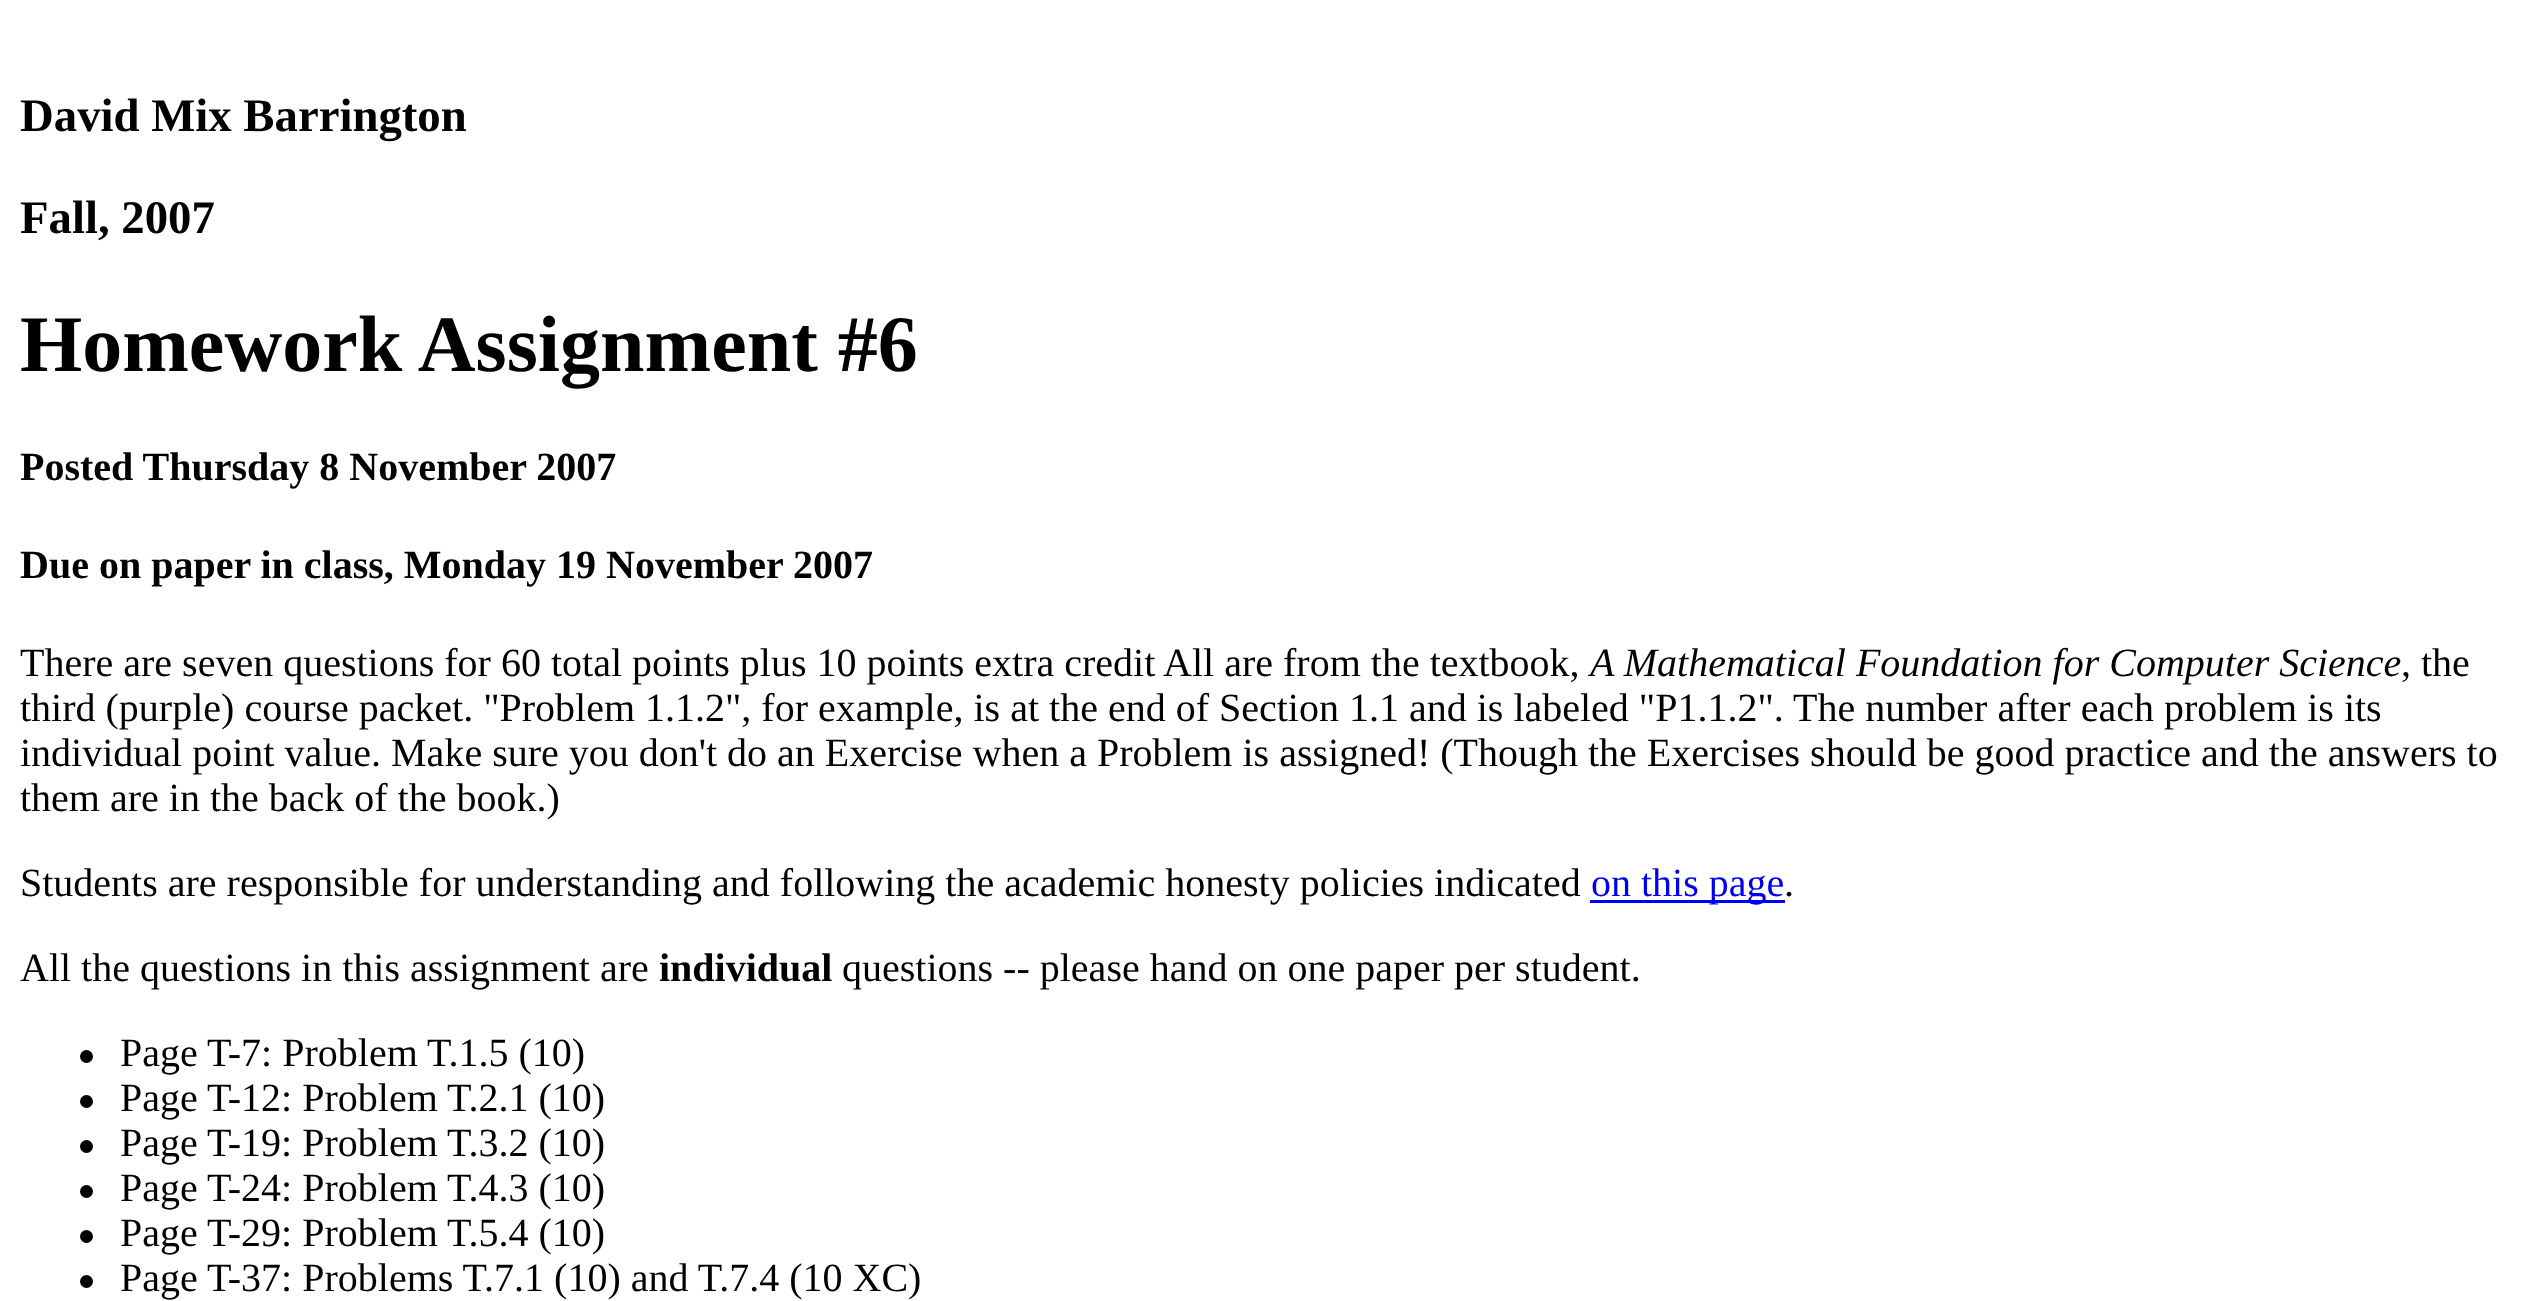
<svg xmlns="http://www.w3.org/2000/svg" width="2538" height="1301">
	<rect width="100%" height="100%" fill="#FFFFFF" />
	<g font-family="Liberation Serif" font-size="46.75" font-weight="700" fill="#000000">
		<text x="20" y="131">David Mix Barrington</text>
		<text x="20" y="233">Fall, 2007</text>
	</g>
	<text x="20" y="371" font-family="Liberation Serif" font-size="80" font-weight="700" fill="#000000">Homework Assignment #6</text>
	<g font-family="Liberation Serif" font-size="40" font-weight="700" fill="#000000">
		<text x="20" y="480">Posted Thursday 8 November 2007</text>
		<text x="20" y="578">Due on paper in class, Monday 19 November 2007</text>
	</g>
	<text x="20" y="676" font-family="Liberation Serif" font-size="40" fill="#000000">There are seven questions for 60 total points plus 10 points extra credit All are from the textbook,</text>
	<text x="1590" y="676" font-family="Liberation Serif" font-size="40" font-style="italic" fill="#000000">A Mathematical Foundation for Computer Science</text>
	<g font-family="Liberation Serif" font-size="40" fill="#000000">
		<text x="2401" y="676">, the</text>
		<text x="20" y="721">third (purple) course packet. "Problem 1.1.2", for example, is at the end of Section 1.1 and is labeled "P1.1.2".</text>
		<text x="1793" y="721">The number after each problem is its</text>
		<text x="20" y="766">individual point value. Make sure you don't do an Exercise when a Problem is assigned! (Though the Exercises should be good practice and the answers to</text>
		<text x="20" y="811">them are in the back of the book.)</text>
		<text x="20" y="896">Students are responsible for understanding and following the academic honesty policies indicated</text>
	</g>
	<rect x="1590" y="900" width="195" height="3" fill="#0000EE" />
	<text x="1591" y="896" font-family="Liberation Serif" font-size="40" fill="#0000EE">on this page</text>
	<g font-family="Liberation Serif" font-size="40" fill="#000000">
		<text x="1784" y="896">.</text>
		<text x="20" y="981">All the questions in this assignment are</text>
	</g>
	<text x="659" y="981" font-family="Liberation Serif" font-size="40" font-weight="700" fill="#000000">individual</text>
	<text x="842" y="981" font-family="Liberation Serif" font-size="40" fill="#000000">questions -- please hand on one paper per student.</text>
	<circle cx="86.5" cy="1056.5" r="6.5" fill="#000000" />
	<text x="120" y="1066" font-family="Liberation Serif" font-size="40" fill="#000000">Page T-7: Problem T.1.5 (10)</text>
	<circle cx="86.5" cy="1101.5" r="6.5" fill="#000000" />
	<text x="120" y="1111" font-family="Liberation Serif" font-size="40" fill="#000000">Page T-12: Problem T.2.1 (10)</text>
	<circle cx="86.5" cy="1146.5" r="6.5" fill="#000000" />
	<text x="120" y="1156" font-family="Liberation Serif" font-size="40" fill="#000000">Page T-19: Problem T.3.2 (10)</text>
	<circle cx="86.5" cy="1191.5" r="6.5" fill="#000000" />
	<text x="120" y="1201" font-family="Liberation Serif" font-size="40" fill="#000000">Page T-24: Problem T.4.3 (10)</text>
	<circle cx="86.5" cy="1236.5" r="6.5" fill="#000000" />
	<text x="120" y="1246" font-family="Liberation Serif" font-size="40" fill="#000000">Page T-29: Problem T.5.4 (10)</text>
	<circle cx="86.5" cy="1281.5" r="6.5" fill="#000000" />
	<text x="120" y="1291" font-family="Liberation Serif" font-size="40" fill="#000000">Page T-37: Problems T.7.1 (10) and T.7.4 (10 XC)</text>
</svg>
